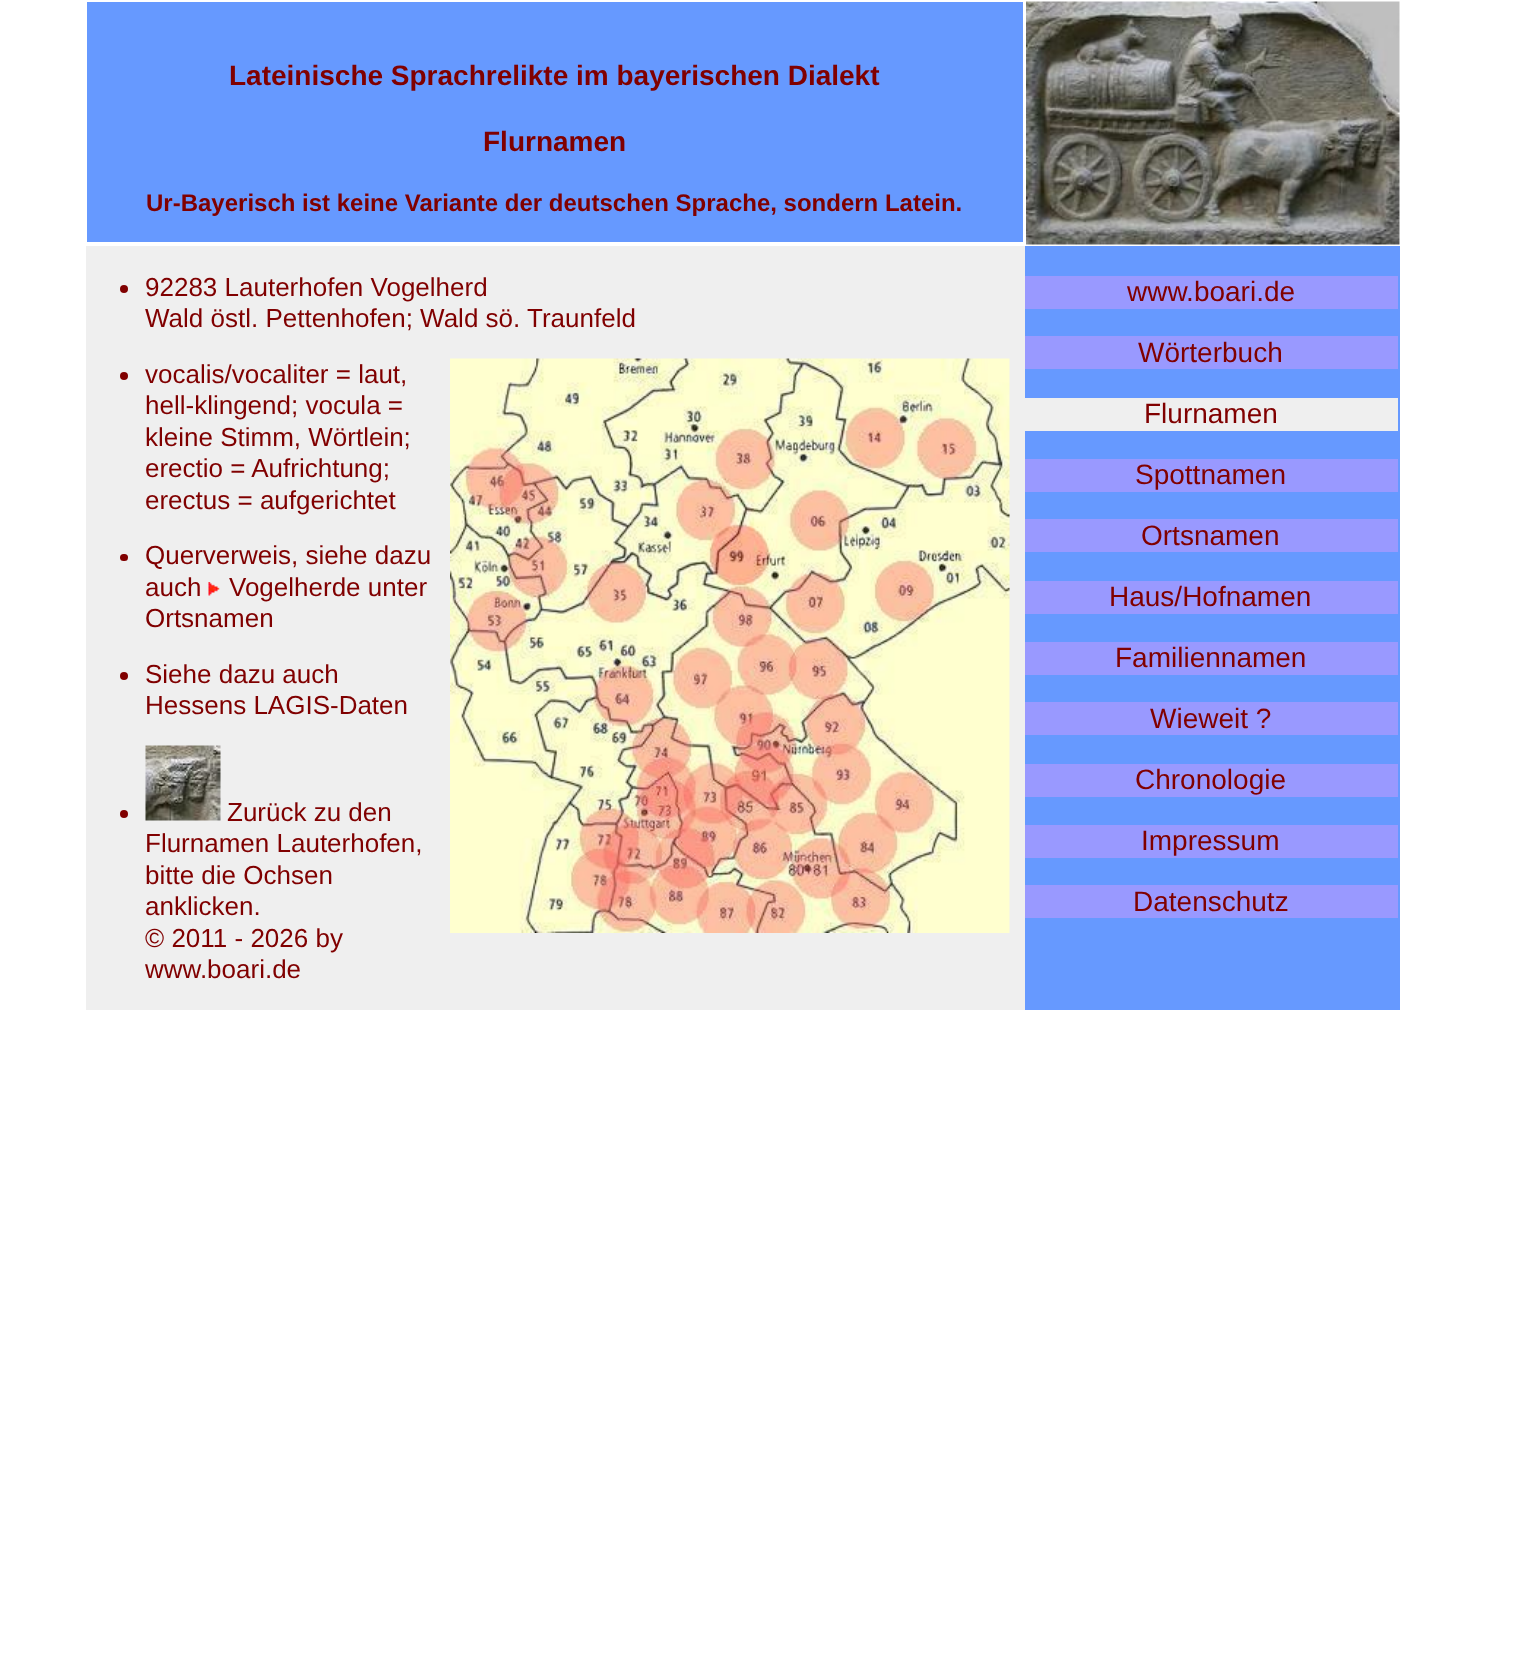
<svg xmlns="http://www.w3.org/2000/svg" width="1519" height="1661">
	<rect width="100%" height="100%" fill="#FFFFFF" />
	<rect x="87" y="2" width="936" height="240" fill="#6699FF" />
	<g font-family="Liberation Sans" font-size="28" font-weight="700" fill="#800000">
		<text x="229" y="85">Lateinische Sprachrelikte im bayerischen Dialekt</text>
		<text x="483" y="151">Flurnamen</text>
	</g>
	<text x="146" y="211" font-family="Liberation Sans" font-size="24" font-weight="700" fill="#800000">Ur-Bayerisch ist keine Variante der deutschen Sprache, sondern Latein.</text>
	<image x="1026" y="1" width="374" height="244" href="assets/img1.png" />
	<rect x="86" y="246" width="939" height="764" fill="#EFEFEF" />
	<circle cx="124" cy="289" r="4" fill="#800000" />
	<g font-family="Liberation Sans" font-size="26" fill="#800000">
		<text x="145" y="296">92283 Lauterhofen Vogelherd</text>
		<text x="145" y="327">Wald östl. Pettenhofen; Wald sö. Traunfeld</text>
	</g>
	<circle cx="124" cy="376" r="4" fill="#800000" />
	<text x="145" y="383" font-family="Liberation Sans" font-size="26" fill="#800000">vocalis/vocaliter = laut,</text>
	<image x="450" y="358" width="560" height="575" href="assets/img2.png" />
	<g font-family="Liberation Sans" font-size="26" fill="#800000">
		<text x="145" y="414">hell-klingend; vocula =</text>
		<text x="145" y="446">kleine Stimm, Wörtlein;</text>
		<text x="145" y="477">erectio = Aufrichtung;</text>
		<text x="145" y="509">erectus = aufgerichtet</text>
	</g>
	<rect x="120" y="554" width="8" height="7" rx="3.5" fill="#800000" />
	<g font-family="Liberation Sans" font-size="26" fill="#800000">
		<text x="145" y="564">Querverweis, siehe dazu</text>
		<text x="145" y="596">auch</text>
	</g>
	<image x="208" y="582" width="12" height="14" href="assets/img3.png" />
	<g font-family="Liberation Sans" font-size="26" fill="#800000">
		<text x="229" y="596">Vogelherde unter</text>
		<text x="145" y="627">Ortsnamen</text>
	</g>
	<circle cx="124" cy="676" r="4" fill="#800000" />
	<g font-family="Liberation Sans" font-size="26" fill="#800000">
		<text x="145" y="683">Siehe dazu auch</text>
		<text x="145" y="714">Hessens LAGIS-Daten</text>
	</g>
	<circle cx="124" cy="814" r="4" fill="#800000" />
	<image x="145" y="745" width="76" height="76" href="assets/img4.png" />
	<g font-family="Liberation Sans" font-size="26" fill="#800000">
		<text x="227" y="821">Zurück zu den</text>
		<text x="145" y="852">Flurnamen Lauterhofen,</text>
		<text x="145" y="884">bitte die Ochsen</text>
		<text x="145" y="915">anklicken.</text>
		<text x="145" y="947">© 2011 - 2026 by</text>
		<text x="145" y="978">www.boari.de</text>
	</g>
	<rect x="1025" y="246" width="375" height="764" fill="#6699FF" />
	<rect x="1025" y="276" width="373" height="33" fill="#9999FF" />
	<text x="1127" y="301" font-family="Liberation Sans" font-size="28" fill="#800000">www.boari.de</text>
	<rect x="1025" y="336" width="373" height="33" fill="#9999FF" />
	<text x="1138" y="362" font-family="Liberation Sans" font-size="28" fill="#800000">Wörterbuch</text>
	<rect x="1025" y="398" width="373" height="33" fill="#EFEFEF" />
	<text x="1144" y="423" font-family="Liberation Sans" font-size="28" fill="#800000">Flurnamen</text>
	<rect x="1025" y="459" width="373" height="33" fill="#9999FF" />
	<text x="1135" y="484" font-family="Liberation Sans" font-size="28" fill="#800000">Spottnamen</text>
	<rect x="1025" y="519" width="373" height="33" fill="#9999FF" />
	<text x="1141" y="545" font-family="Liberation Sans" font-size="28" fill="#800000">Ortsnamen</text>
	<rect x="1025" y="581" width="373" height="33" fill="#9999FF" />
	<text x="1109" y="606" font-family="Liberation Sans" font-size="28" fill="#800000">Haus/Hofnamen</text>
	<rect x="1025" y="642" width="373" height="33" fill="#9999FF" />
	<text x="1115" y="667" font-family="Liberation Sans" font-size="28" fill="#800000">Familiennamen</text>
	<rect x="1025" y="702" width="373" height="33" fill="#9999FF" />
	<text x="1150" y="728" font-family="Liberation Sans" font-size="28" fill="#800000">Wieweit ?</text>
	<rect x="1025" y="764" width="373" height="33" fill="#9999FF" />
	<text x="1135" y="789" font-family="Liberation Sans" font-size="28" fill="#800000">Chronologie</text>
	<rect x="1025" y="825" width="373" height="33" fill="#9999FF" />
	<text x="1141" y="850" font-family="Liberation Sans" font-size="28" fill="#800000">Impressum</text>
	<rect x="1025" y="885" width="373" height="33" fill="#9999FF" />
	<text x="1133" y="911" font-family="Liberation Sans" font-size="28" fill="#800000">Datenschutz</text>
</svg>
